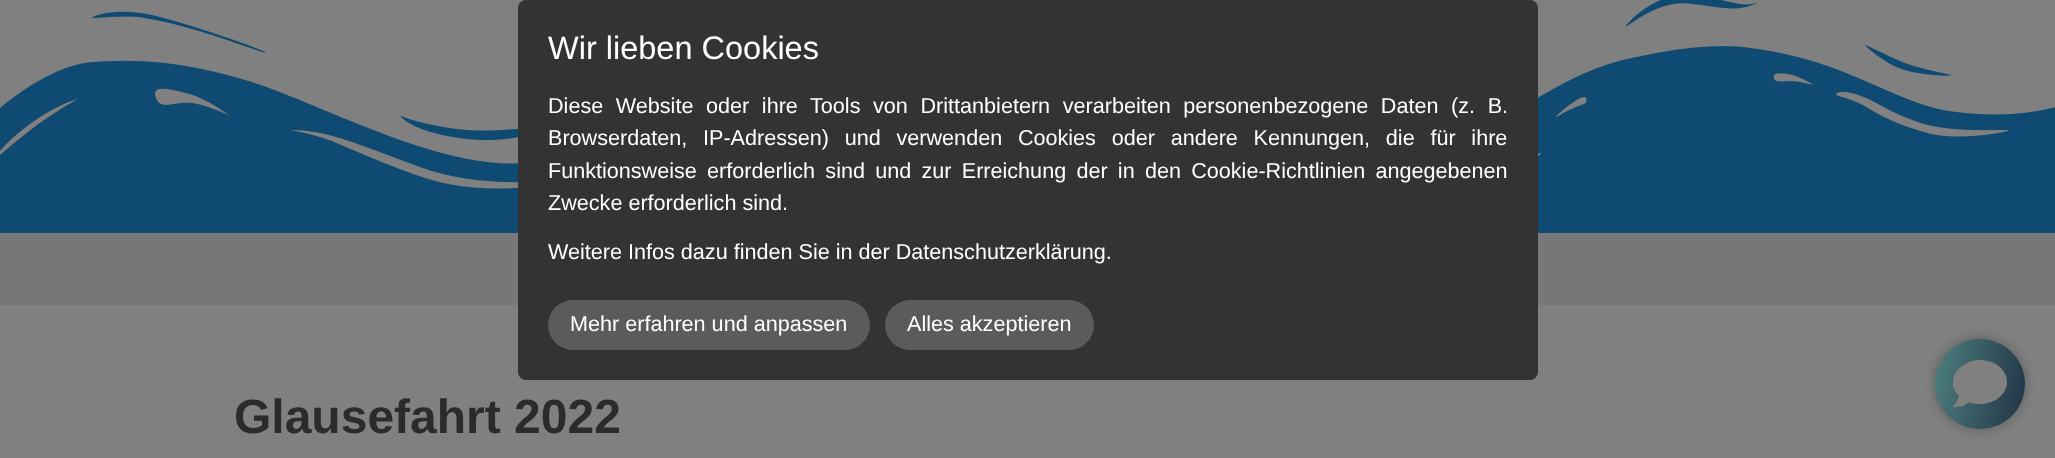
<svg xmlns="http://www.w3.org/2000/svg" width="2055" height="458">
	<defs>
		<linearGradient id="g1" gradientUnits="userSpaceOnUse" x1="1929" y1="375" x2="2031" y2="393"><stop offset="0" stop-color="#4D8080" /><stop offset="1" stop-color="#213345" /></linearGradient>
		<clipPath id="clip1"><rect x="1953" y="357" width="54" height="54" /></clipPath>
	</defs>
	<rect width="100%" height="100%" fill="#808080" />
	<image x="0" y="0" width="2055" height="233" href="assets/img1.png" />
	<rect x="0" y="233" width="2055" height="72" fill="#777777" />
	<rect x="518" y="0" width="1020" height="380" rx="8" fill="#333333" />
	<text x="548" y="59" font-family="Liberation Sans" font-size="32.5" fill="#FFFFFF">Wir lieben Cookies</text>
	<g font-family="Liberation Sans" font-size="21.6" fill="#FFFFFF">
		<text x="548" y="113" word-spacing="6.6">Diese Website oder ihre Tools von Drittanbietern verarbeiten personenbezogene Daten (z. B.</text>
		<text x="548" y="145" word-spacing="9.75">Browserdaten, IP-Adressen) und verwenden Cookies oder andere Kennungen, die für ihre</text>
		<text x="548" y="178" word-spacing="4.25">Funktionsweise erforderlich sind und zur Erreichung der in den Cookie-Richtlinien angegebenen</text>
		<text x="548" y="210">Zwecke erforderlich sind.</text>
		<text x="548" y="259">Weitere Infos dazu finden Sie in der Datenschutzerklärung.</text>
	</g>
	<rect x="548" y="300" width="322" height="50" rx="25" fill="#5B5B5B" />
	<text x="570" y="331" font-family="Liberation Sans" font-size="21.6" fill="#FFFFFF">Mehr erfahren und anpassen</text>
	<rect x="885" y="300" width="209" height="50" rx="25" fill="#5B5B5B" />
	<text x="907" y="331" font-family="Liberation Sans" font-size="21.6" fill="#FFFFFF">Alles akzeptieren</text>
	<rect x="1935" y="339" width="90" height="90" rx="45" fill="#000000" fill-opacity="0.3" filter="blur(6px)" />
	<circle cx="1980" cy="384" r="45" fill="url(#g1)" />
	<g clip-path="url(#clip1)">
		<path d="M1980 360C1961 360 1943 380 1959 396L1956 403C1954 406 1950 408 1956 407L1963 406L1969 402C1972 404 1976 404 1980 404C1995 404 2007 394 2007 382C2007 370 1995 360 1980 360Z" fill="#808080" />
	</g>
	<text x="234" y="433" font-family="Liberation Sans" font-size="48" font-weight="700" fill="#2B2B2B">Glausefahrt 2022</text>
</svg>
